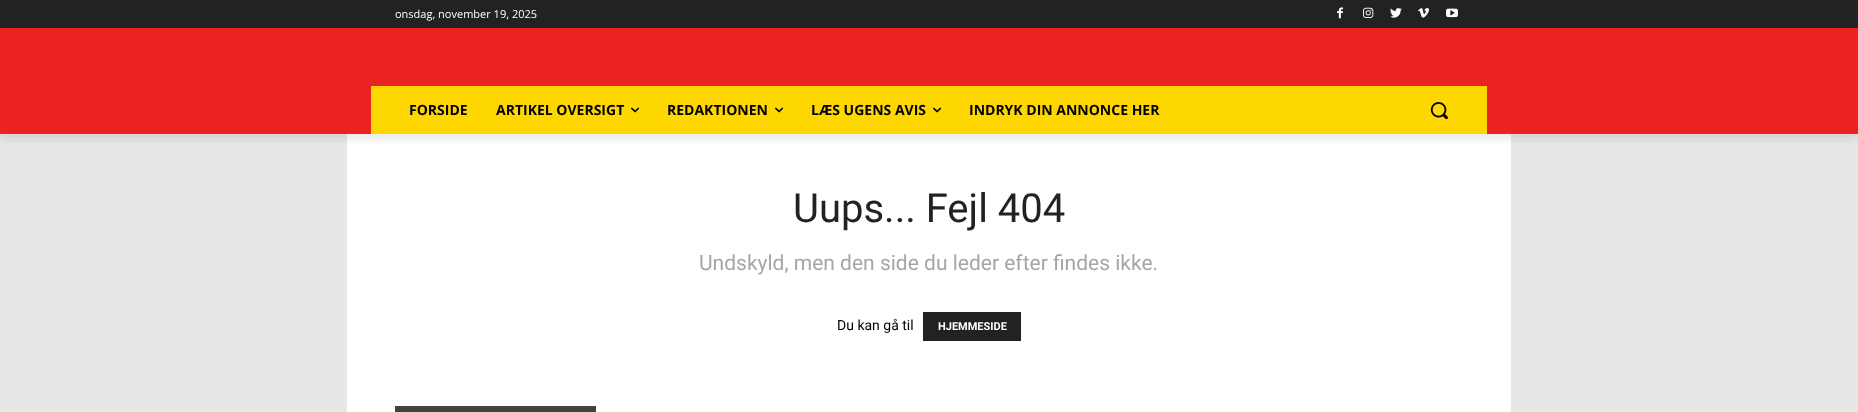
<svg xmlns="http://www.w3.org/2000/svg" width="1858" height="412">
	<defs>
		<clipPath id="clip1"><rect x="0" y="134" width="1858" height="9" /></clipPath>
	</defs>
	<rect width="100%" height="100%" fill="#E7E7E7" />
	<rect x="0" y="0" width="1858" height="28" fill="#222222" />
	<image x="1337" y="7" width="6" height="12" href="assets/img1.png" />
	<image x="1363" y="7" width="11" height="11" href="assets/img2.png" />
	<image x="1390" y="8" width="12" height="10" href="assets/img3.png" />
	<image x="1418" y="8" width="11" height="10" href="assets/img4.png" />
	<image x="1446" y="8" width="12" height="10" href="assets/img5.png" />
	<rect x="0" y="28" width="1858" height="106" fill="#EA2221" />
	<rect x="371" y="86" width="1116" height="48" fill="#FFD700" />
	<rect x="347" y="134" width="1164" height="278" fill="#FFFFFF" />
	<g clip-path="url(#clip1)">
		<rect x="0" y="6" width="1858" height="134" fill="#000000" fill-opacity="0.08" filter="blur(4px)" />
	</g>
	<text x="395" y="18" font-family="Open Sans" font-size="11" fill="#FFFFFF">onsdag, november 19, 2025</text>
	<g font-family="Open Sans" font-size="14" font-weight="700" fill="#000000">
		<text x="409" y="115">FORSIDE</text>
		<text x="496" y="115">ARTIKEL OVERSIGT</text>
	</g>
	<image x="631" y="107" width="9" height="6" href="assets/img6.png" />
	<text x="667" y="115" font-family="Open Sans" font-size="14" font-weight="700" fill="#000000">REDAKTIONEN</text>
	<image x="775" y="107" width="9" height="6" href="assets/img6.png" />
	<text x="811" y="115" font-family="Open Sans" font-size="14" font-weight="700" fill="#000000">LÆS UGENS AVIS</text>
	<image x="933" y="107" width="9" height="6" href="assets/img6.png" />
	<text x="969" y="115" font-family="Open Sans" font-size="14" font-weight="700" fill="#000000">INDRYK DIN ANNONCE HER</text>
	<image x="1430" y="102" width="18" height="18" href="assets/img7.png" />
	<text x="793" y="222" font-family="Roboto" font-size="40" fill="#222222">Uups... Fejl 404</text>
	<text x="699" y="270" font-family="Roboto" font-size="21" fill="#A6A6A6">Undskyld, men den side du leder efter findes ikke.</text>
	<text x="837" y="330" font-family="Roboto" font-size="14" fill="#000000">Du kan gå til</text>
	<rect x="923" y="312" width="98" height="29" fill="#222222" />
	<text x="938" y="330" font-family="Roboto" font-size="11" font-weight="700" fill="#FFFFFF">HJEMMESIDE</text>
	<rect x="395" y="406" width="201" height="6" fill="#424242" />
</svg>
